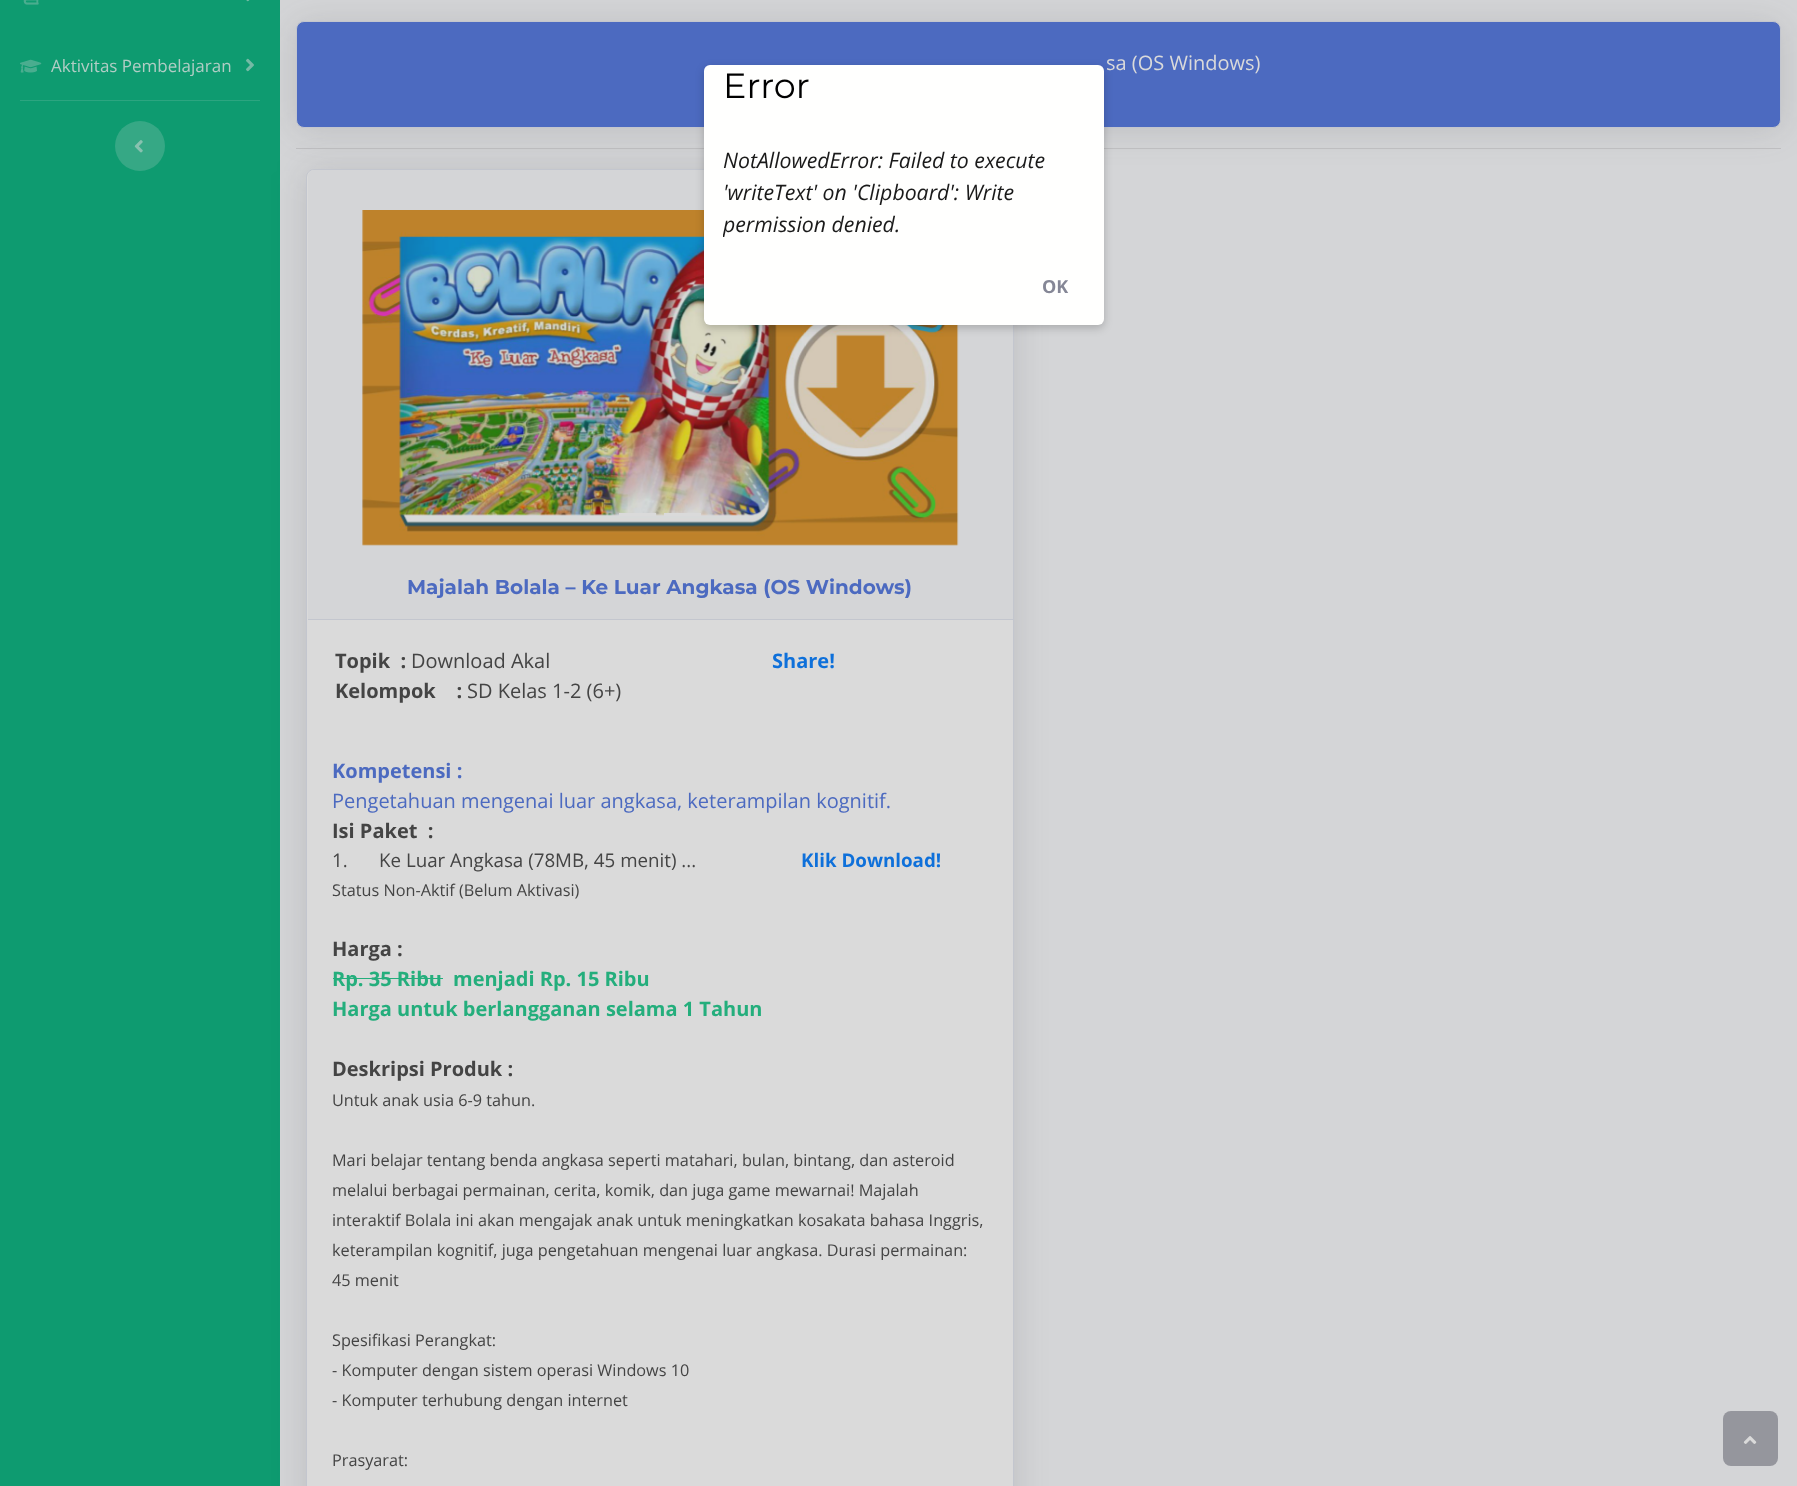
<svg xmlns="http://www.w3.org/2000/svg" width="1797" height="1486">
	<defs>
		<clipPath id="clip1"><rect x="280" y="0" width="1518" height="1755" /></clipPath>
		<clipPath id="clip2"><rect x="723" y="145" width="362" height="95" /></clipPath>
	</defs>
	<rect width="100%" height="100%" fill="#0E9B70" />
	<image x="23" y="0" width="16" height="5" href="assets/img1.png" />
	<image x="246" y="0" width="4" height="2" href="assets/img2.png" />
	<image x="20" y="59" width="22" height="14" href="assets/img3.png" />
	<text x="51" y="72" font-family="Open Sans" font-size="17" fill="#B1CDC5">Aktivitas Pembelajaran</text>
	<image x="246" y="58" width="8" height="14" href="assets/img4.png" />
	<rect x="20" y="100" width="240" height="1" fill="#2CA580" />
	<circle cx="140" cy="146" r="25" fill="#36A885" />
	<image x="134" y="140" width="9" height="13" href="assets/img5.png" />
	<rect x="280" y="0" width="1517" height="1486" fill="#D4D5D7" />
	<g clip-path="url(#clip1)">
		<rect x="296" y="24" width="1485" height="106" rx="8" fill="#3C3D45" fill-opacity="0.15" filter="blur(17.5px)" />
	</g>
	<rect x="296.5" y="21.5" width="1484" height="106" rx="7.5" fill="#4C6AC0" stroke="#C3C6CE" />
	<text x="1106" y="70" font-family="Open Sans" font-size="20" fill="#DADADA">sa (OS Windows)</text>
	<rect x="296" y="148" width="1485" height="1" fill="#BEBEC0" />
	<rect x="306" y="171" width="708" height="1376" rx="8" fill="#3C3D45" fill-opacity="0.15" filter="blur(17.5px)" />
	<rect x="306.5" y="169.5" width="707" height="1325" rx="7.5" fill="#DADADA" stroke="#C3C6CE" />
	<path d="M314 170H1007C1010.5 170 1013 172.5 1013 176V620H308V176C308 172.5 310.5 170 314 170Z" fill="#D4D5D7" />
	<image x="362" y="210" width="597" height="336" href="assets/img6.png" />
	<rect x="619" y="513" width="37" height="3" fill="#DADADA" />
	<rect x="664" y="513" width="37" height="3" fill="#DADADA" />
	<rect x="308" y="619" width="705" height="1" fill="#C3C6CE" />
	<text x="407" y="594" font-family="Montserrat" font-size="20" font-weight="700" fill="#4C6AC0">Majalah Bolala – Ke Luar Angkasa (OS Windows)</text>
	<text x="335" y="668" font-family="Open Sans" font-size="20" font-weight="700" fill="#444444" xml:space="preserve">Topik  :</text>
	<text x="411" y="668" font-family="Open Sans" font-size="20" fill="#444444">Download Akal</text>
	<text x="335" y="698" font-family="Open Sans" font-size="20" font-weight="700" fill="#444444" xml:space="preserve">Kelompok    :</text>
	<text x="467" y="698" font-family="Open Sans" font-size="20" fill="#444444">SD Kelas 1-2 (6+)</text>
	<text x="772" y="668" font-family="Open Sans" font-size="20" font-weight="700" fill="#0E70DA">Share!</text>
	<text x="332" y="778" font-family="Open Sans" font-size="20" font-weight="700" fill="#4C6AC0">Kompetensi :</text>
	<text x="332" y="808" font-family="Open Sans" font-size="20" fill="#4C6AC0">Pengetahuan mengenai luar angkasa, keterampilan kognitif.</text>
	<text x="332" y="838" font-family="Open Sans" font-size="20" font-weight="700" fill="#444444" xml:space="preserve">Isi Paket  :</text>
	<g font-family="Open Sans" font-size="18.75" fill="#444444">
		<text x="332" y="867">1.</text>
		<text x="379" y="867">Ke Luar Angkasa (78MB, 45 menit) ...</text>
	</g>
	<text x="801" y="867" font-family="Open Sans" font-size="18.75" font-weight="700" fill="#0E70DA">Klik Download!</text>
	<text x="332" y="896" font-family="Open Sans" font-size="16.25" fill="#444444">Status Non-Aktif (Belum Aktivasi)</text>
	<text x="332" y="956" font-family="Open Sans" font-size="20" font-weight="700" fill="#444444">Harga :</text>
	<text x="332" y="986" font-family="Open Sans" font-size="20" font-weight="700" fill="#24AE7C">Rp. 35 Ribu</text>
	<rect x="333" y="978" width="110" height="1" fill="#24AE7C" />
	<g font-family="Open Sans" font-size="20" font-weight="700" fill="#24AE7C">
		<text x="453" y="986">menjadi Rp. 15 Ribu</text>
		<text x="332" y="1016">Harga untuk berlangganan selama 1 Tahun</text>
	</g>
	<text x="332" y="1076" font-family="Open Sans" font-size="20" font-weight="700" fill="#444444">Deskripsi Produk :</text>
	<g font-family="Open Sans" font-size="16.25" fill="#444444">
		<text x="332" y="1106">Untuk anak usia 6-9 tahun.</text>
		<text x="332" y="1166">Mari belajar tentang benda angkasa seperti matahari, bulan, bintang, dan asteroid</text>
		<text x="332" y="1196">melalui berbagai permainan, cerita, komik, dan juga game mewarnai! Majalah</text>
		<text x="332" y="1226">interaktif Bolala ini akan mengajak anak untuk meningkatkan kosakata bahasa Inggris,</text>
		<text x="332" y="1256">keterampilan kognitif, juga pengetahuan mengenai luar angkasa. Durasi permainan:</text>
		<text x="332" y="1286">45 menit</text>
		<text x="332" y="1346">Spesifikasi Perangkat:</text>
		<text x="332" y="1376">- Komputer dengan sistem operasi Windows 10</text>
		<text x="332" y="1406">- Komputer terhubung dengan internet</text>
		<text x="332" y="1466">Prasyarat:</text>
	</g>
	<rect x="1723" y="1411" width="55" height="55" rx="8" fill="#95969D" />
	<image x="1743" y="1436" width="14" height="8" href="assets/img7.png" />
	<rect x="704" y="68" width="400" height="260" rx="6" fill="#000000" fill-opacity="0.2" filter="blur(4px)" />
	<rect x="704" y="65" width="400" height="260" rx="6" fill="#FFFFFE" />
	<text x="723" y="98" font-family="Montserrat" font-size="35" fill="#000000">Error</text>
	<g font-family="Open Sans" font-size="21.25" font-style="italic" fill="#1A1A1A">
		<text x="723" y="168">NotAllowedError: Failed to execute</text>
		<text x="723" y="200">'writeText' on 'Clipboard': Write</text>
	</g>
	<g clip-path="url(#clip2)">
		<text x="723" y="232" font-family="Open Sans" font-size="21.25" font-style="italic" fill="#1A1A1A">permission denied.</text>
	</g>
	<text x="1042" y="293" font-family="Open Sans" font-size="18" font-weight="700" fill="#858796">OK</text>
</svg>
